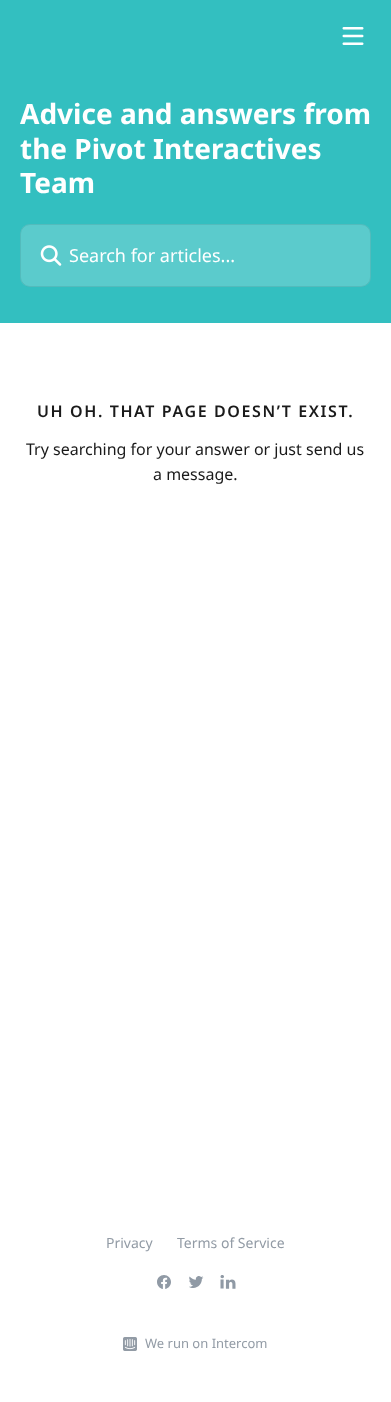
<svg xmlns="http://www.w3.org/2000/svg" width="391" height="1402">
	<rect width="100%" height="100%" fill="#FFFFFF" />
	<rect x="0" y="0" width="391" height="323" fill="#33BFC0" />
	<image x="342" y="27" width="22" height="18" href="assets/img1.png" />
	<g font-family="Noto Sans" font-size="28" font-weight="700" fill="#FFFFFF">
		<text x="20" y="124">Advice and answers from</text>
		<text x="20" y="159">the Pivot Interactives</text>
		<text x="20" y="193">Team</text>
	</g>
	<rect x="20" y="224" width="351" height="63" rx="10" fill="#FFFFFF" fill-opacity="0.2" />
	<rect x="20.5" y="224.5" width="350" height="62" rx="9.5" fill="none" stroke="#000000" stroke-opacity="0.08" />
	<image x="40" y="245" width="22" height="21" href="assets/img2.png" />
	<text x="69" y="262" font-family="Noto Sans" font-size="18" fill="#FFFFFF">Search for articles...</text>
	<text x="37" y="417" font-family="Noto Sans" font-size="16" font-weight="600" letter-spacing="1.6" fill="#1A1A1A">UH OH. THAT PAGE DOESN’T EXIST.</text>
	<g font-family="Noto Sans" font-size="16" fill="#1A1A1A">
		<text x="26" y="455">Try searching for your answer or just send us</text>
		<text x="153" y="480">a message.</text>
	</g>
	<g font-family="Noto Sans" font-size="14" fill="#929BA5">
		<text x="106" y="1248">Privacy</text>
		<text x="177" y="1248">Terms of Service</text>
	</g>
	<image x="157" y="1275" width="14" height="14" href="assets/img3.png" />
	<image x="189" y="1276" width="15" height="12" href="assets/img4.png" />
	<image x="220" y="1275" width="16" height="14" href="assets/img5.png" />
	<image x="123" y="1337" width="14" height="14" href="assets/img6.png" />
	<text x="145" y="1348" font-family="Noto Sans" font-size="13" fill="#929BA5">We run on Intercom</text>
</svg>
